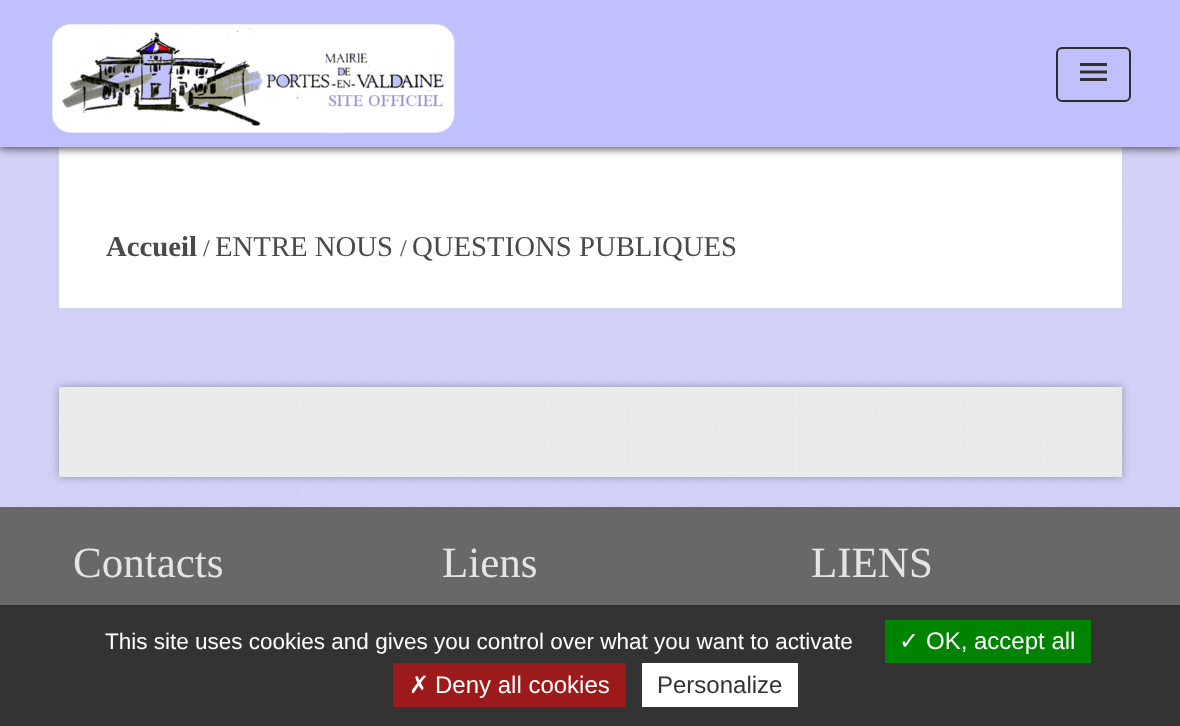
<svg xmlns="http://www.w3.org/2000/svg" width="1180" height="726">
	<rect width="100%" height="100%" fill="#DADAFF" />
	<image x="0" y="147" width="1180" height="360" href="assets/img1.png" />
	<image x="1122" y="147" width="1" height="142" href="assets/img4.png" />
	<rect x="59" y="147" width="1063" height="161" fill="#FFFFFF" />
	<rect x="0" y="2" width="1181" height="147" fill="#535353" filter="blur(4.5px)" />
	<rect x="0" y="0" width="1180" height="147" fill="#C0C0FF" />
	<image x="52" y="24" width="403" height="109" href="assets/img2.png" />
	<rect x="1057" y="48" width="73" height="53" rx="5" fill="none" stroke="#2D2D2D" stroke-width="2" />
	<image x="1080" y="63" width="27" height="18" href="assets/img3.png" />
	<text x="106" y="256" font-family="Liberation Serif" font-size="28.75" font-weight="700" fill="#4A4848">Accueil</text>
	<text x="203" y="256" font-family="Liberation Serif" font-size="24" fill="#4A4848">/</text>
	<text x="215" y="256" font-family="Liberation Serif" font-size="28.75" fill="#4A4848">ENTRE NOUS</text>
	<text x="400" y="256" font-family="Liberation Serif" font-size="24" fill="#4A4848">/</text>
	<text x="412" y="256" font-family="Liberation Serif" font-size="28.75" fill="#4A4848">QUESTIONS PUBLIQUES</text>
	<rect x="59" y="387" width="1063" height="90" fill="#000000" fill-opacity="0.3" filter="blur(4.5px)" />
	<rect x="59" y="387" width="1063" height="90" fill="#FFFFFF" />
	<image x="58" y="387" width="1064" height="90" href="assets/img5.png" />
	<rect x="0" y="507" width="1180" height="98" fill="#696767" />
	<g font-family="Liberation Serif" font-size="43" fill="#E6E5E5">
		<text x="73" y="577">Contacts</text>
		<text x="442" y="577">Liens</text>
		<text x="811" y="577">LIENS</text>
	</g>
	<rect x="0" y="605" width="1180" height="121" fill="#333333" />
	<text x="105" y="649" font-family="Liberation Sans" font-size="22.5" fill="#FFFFFF">This site uses cookies and gives you control over what you want to activate</text>
	<rect x="885" y="620" width="206" height="43" fill="#008300" />
	<text x="899" y="649" font-family="DejaVu Sans" font-size="24" fill="#FFFFFF">✓</text>
	<text x="926" y="649" font-family="Liberation Sans" font-size="24" fill="#FFFFFF">OK, accept all</text>
	<rect x="393" y="663" width="233" height="44" fill="#9C1A1A" />
	<text x="409" y="693" font-family="DejaVu Sans" font-size="24" fill="#FFFFFF">✗</text>
	<text x="435" y="693" font-family="Liberation Sans" font-size="24" fill="#FFFFFF">Deny all cookies</text>
	<rect x="642" y="663" width="156" height="44" fill="#FFFFFF" />
	<text x="657" y="693" font-family="Liberation Sans" font-size="24" fill="#333333">Personalize</text>
</svg>
